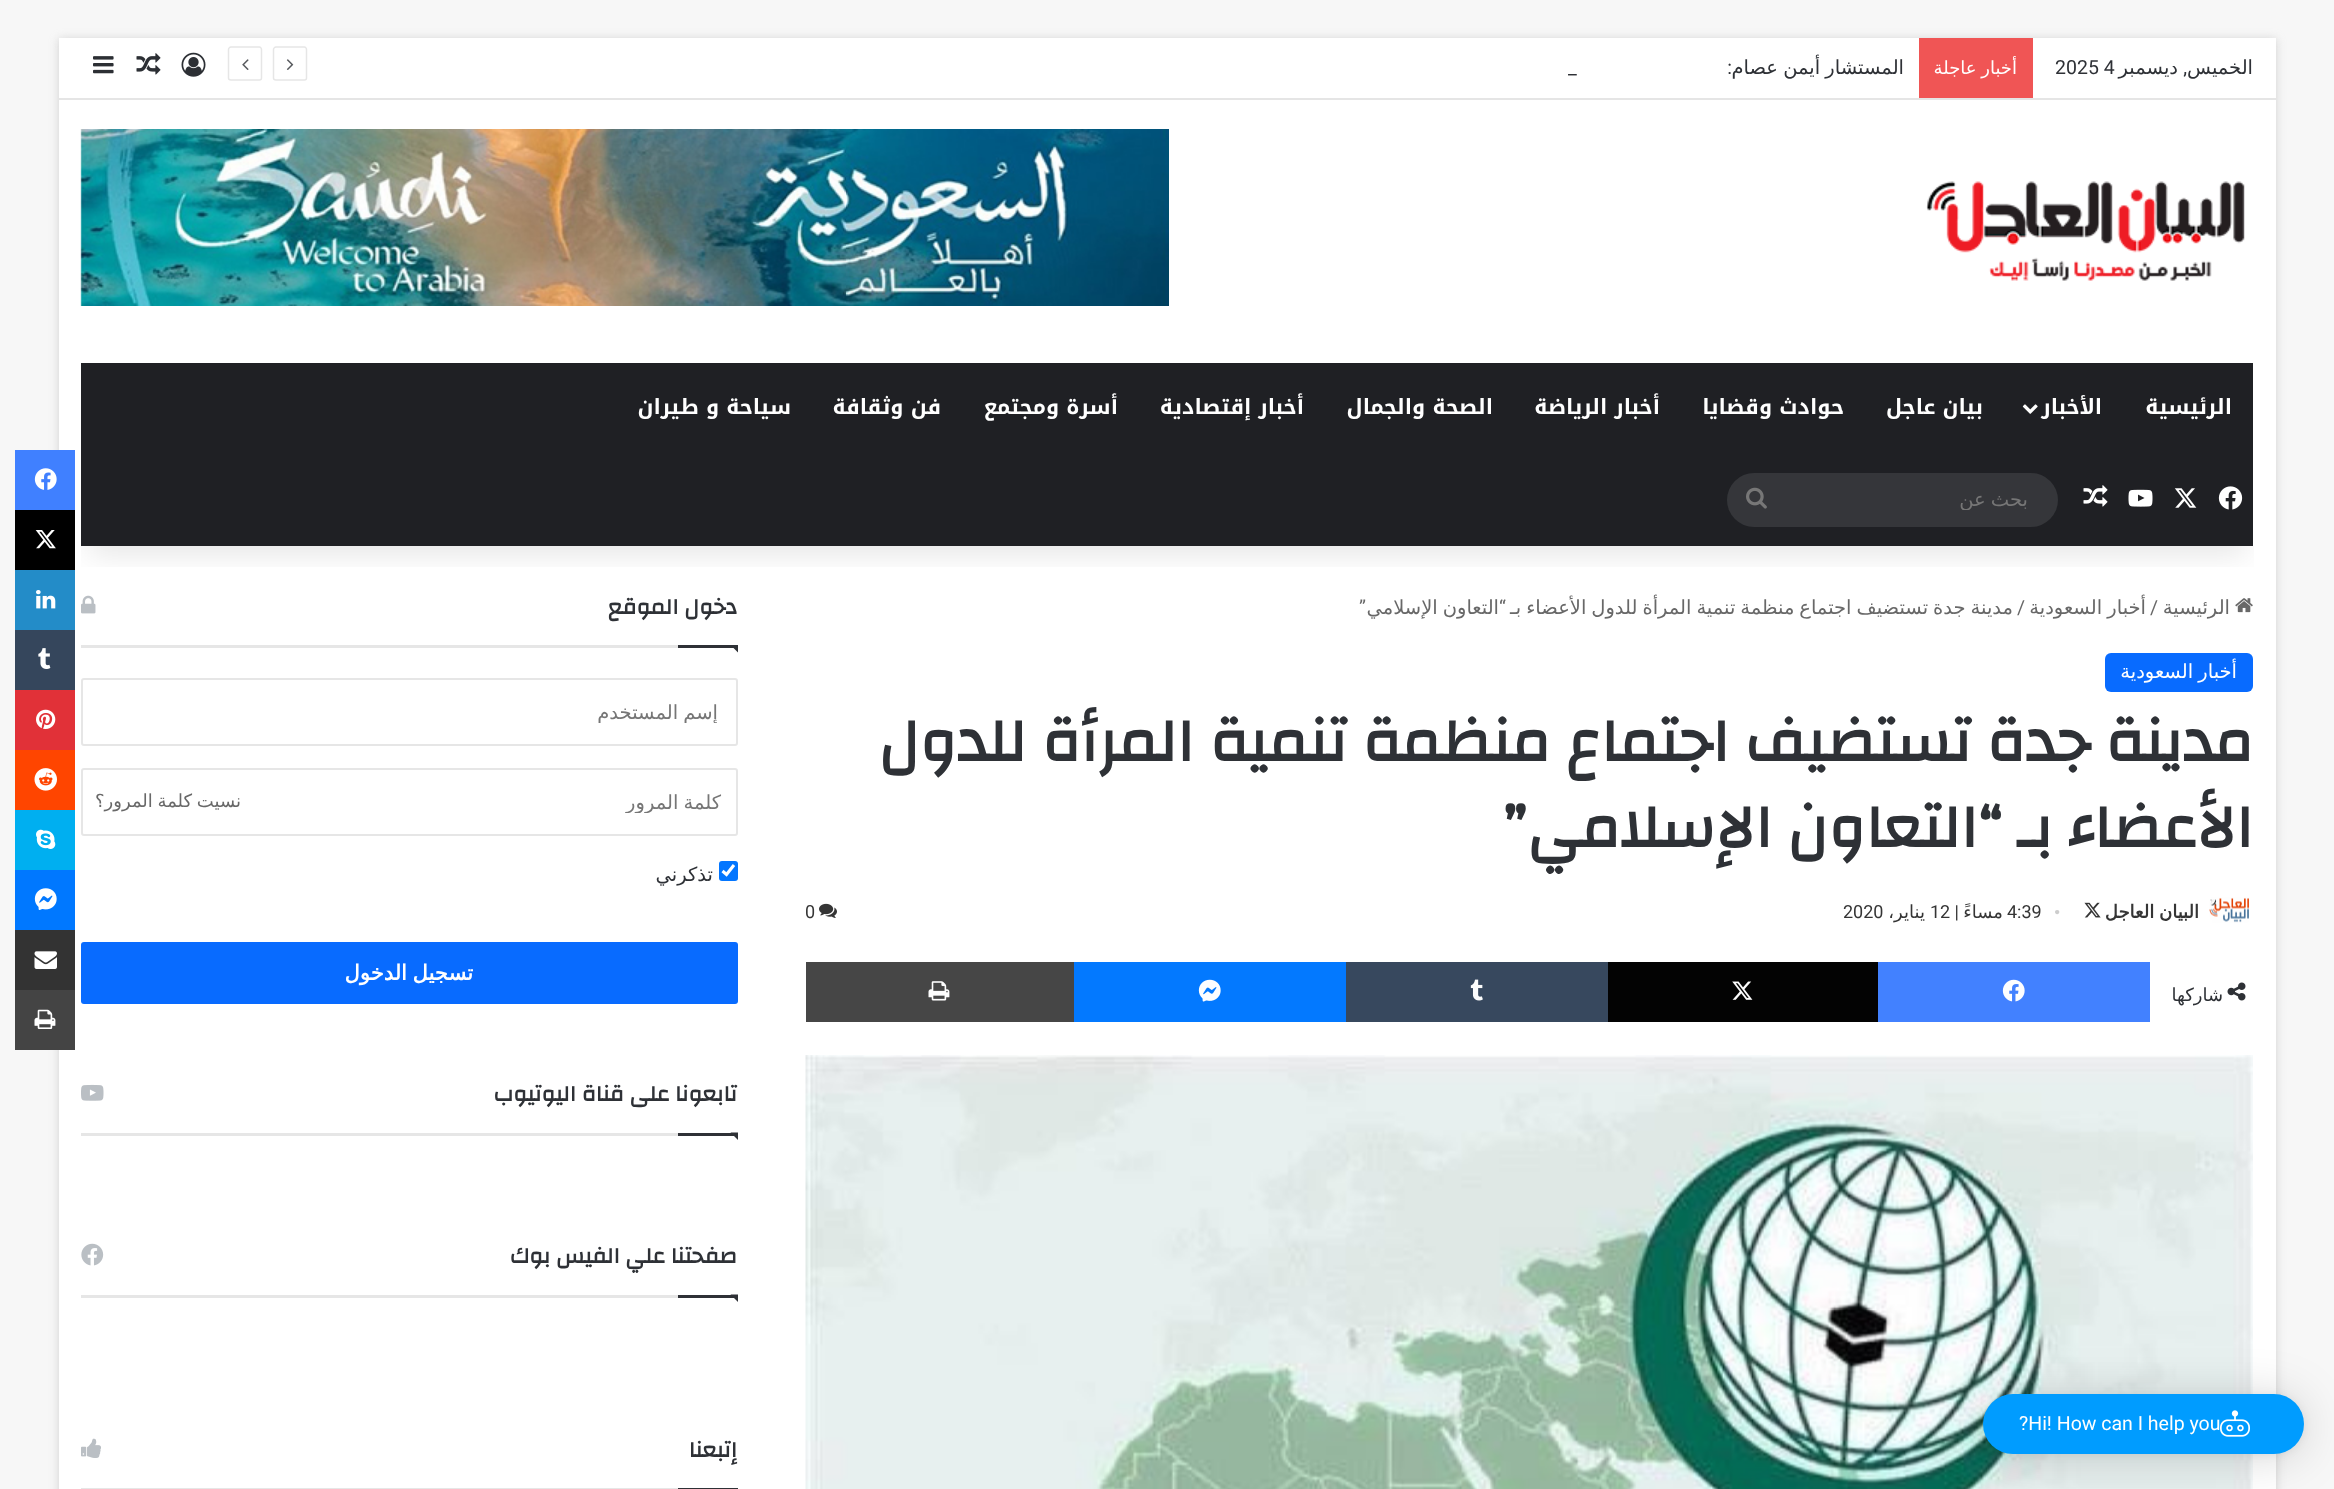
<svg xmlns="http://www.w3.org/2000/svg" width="2334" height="1489">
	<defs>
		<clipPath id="clip1"><rect x="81" y="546" width="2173" height="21" /></clipPath>
		<clipPath id="clip2"><rect x="1779" y="488" width="249" height="22" /></clipPath>
		<clipPath id="clip3"><rect x="101" y="701" width="618" height="22" /></clipPath>
		<clipPath id="clip4"><rect x="188" y="791" width="534" height="22" /></clipPath>
	</defs>
	<rect width="100%" height="100%" fill="#F7F7F7" />
	<rect x="59" y="39" width="2217" height="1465" fill="#ABABAB" fill-opacity="0.5" filter="blur(5px)" />
	<rect x="59" y="38" width="2217" height="1451" fill="#FFFFFF" />
	<image x="2235" y="598" width="18" height="15" href="assets/img14.png" />
	<image x="81" y="595" width="15" height="19" href="assets/img25.png" />
	<g clip-path="url(#clip1)">
		<rect x="89" y="105" width="2157" height="449" fill="#000000" fill-opacity="0.1" filter="blur(15px)" />
	</g>
	<rect x="59" y="98" width="2217" height="2" fill="#E5E5E5" />
	<text x="2253" y="74" font-family="DejaVu Sans" font-size="19.5" direction="rtl" fill="#2E3136">الخميس</text>
	<text x="2187" y="74" font-family="Roboto" font-size="19.5" direction="rtl" fill="#2E3136">,</text>
	<text x="2178" y="74" font-family="DejaVu Sans" font-size="19.5" direction="rtl" fill="#2E3136">ديسمبر</text>
	<text x="2055" y="74" font-family="Roboto" font-size="19.5" fill="#2E3136">2025 4</text>
	<rect x="1919" y="38" width="114" height="60" fill="#F05555" />
	<text x="2017" y="74" word-spacing="-1" font-family="DejaVu Sans" font-size="18" direction="rtl" fill="#FFFFFF">أخبار عاجلة</text>
	<text x="1904" y="74" word-spacing="-1" font-family="DejaVu Sans" font-size="19.5" direction="rtl" fill="#2E3136">المستشار أيمن عصام</text>
	<text x="1732" y="74" font-family="Roboto" font-size="19.5" direction="rtl" fill="#2E3136">:</text>
	<text x="1568" y="74" font-family="Roboto" font-size="19.5" fill="#2E3136">_</text>
	<path d="M304.5 80H276C274.5 80 273.5 79 273.5 78V49.5C273.5 48.5 274.5 47 276 47H304.5C305.5 47 306.5 48.5 306.5 49.5V78C306.5 79 305.5 80 304.5 80Z" fill="none" stroke="#E6E6E6" stroke-width="1.5" />
	<image x="286" y="59" width="8" height="11" href="assets/img1.png" />
	<path d="M259.5 80H231C229.5 80 228.5 79 228.5 78V49.5C228.5 48.5 229.5 47 231 47H259.5C260.5 47 261.5 48.5 261.5 49.5V78C261.5 79 260.5 80 259.5 80Z" fill="none" stroke="#E6E6E6" stroke-width="1.5" />
	<image x="242" y="59" width="7" height="11" href="assets/img2.png" />
	<image x="181" y="52" width="25" height="25" href="assets/img3.png" />
	<image x="136" y="53" width="25" height="22" href="assets/img4.png" />
	<image x="93" y="56" width="21" height="18" href="assets/img5.png" />
	<image x="1926" y="181" width="319" height="100" href="assets/img6.png" />
	<image x="80" y="129" width="1089" height="177" href="assets/img7.png" />
	<rect x="81" y="363" width="2172" height="183" fill="#1F2024" />
	<g font-family="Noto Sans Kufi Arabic" font-size="21" font-weight="700" direction="rtl" fill="#FFFFFF">
		<text x="2232" y="414">الرئيسية</text>
		<text x="2102" y="414">الأخبار</text>
	</g>
	<image x="2022" y="404" width="16" height="10" href="assets/img8.png" />
	<g font-family="Noto Sans Kufi Arabic" font-size="21" font-weight="700" direction="rtl" fill="#FFFFFF">
		<text x="1983" y="414">بيان عاجل</text>
		<text x="1844" y="414">حوادث وقضايا</text>
		<text x="1660" y="414">أخبار الرياضة</text>
		<text x="1493" y="414">الصحة والجمال</text>
		<text x="1304" y="414">أخبار إقتصادية</text>
		<text x="1118" y="414">أسرة ومجتمع</text>
		<text x="941" y="414">فن وثقافة</text>
		<text x="791" y="414">سياحة و طيران</text>
	</g>
	<image x="2218" y="486" width="25" height="24" href="assets/img9.png" />
	<image x="2174" y="488" width="23" height="20" href="assets/img10.png" />
	<image x="2128" y="489" width="25" height="18" href="assets/img11.png" />
	<image x="2083" y="485" width="25" height="22" href="assets/img12.png" />
	<rect x="1727" y="473" width="331" height="54" rx="27" fill="#35363A" />
	<g clip-path="url(#clip2)">
		<text x="2028" y="506" word-spacing="-1" font-family="DejaVu Sans" font-size="19.5" direction="rtl" fill="#767676">بحث عن</text>
	</g>
	<image x="1746" y="487" width="21" height="22" href="assets/img13.png" />
	<text x="2230" y="614" font-family="DejaVu Sans" font-size="19.5" direction="rtl" fill="#686868">الرئيسية</text>
	<text x="2150" y="614" font-family="Roboto" font-size="19.5" fill="#686868">/</text>
	<text x="2146" y="614" word-spacing="-1" font-family="DejaVu Sans" font-size="19.5" direction="rtl" fill="#686868">أخبار السعودية</text>
	<text x="2017" y="614" font-family="Roboto" font-size="19.5" fill="#686868">/</text>
	<text x="2013" y="614" word-spacing="-1.25" font-family="DejaVu Sans" font-size="19.5" direction="rtl" fill="#686868">مدينة جدة تستضيف اجتماع منظمة تنمية المرأة للدول الأعضاء بـ</text>
	<text x="1506" y="614" font-family="Roboto" font-size="19.5" direction="rtl" fill="#686868">“</text>
	<text x="1499" y="614" word-spacing="-1.25" font-family="DejaVu Sans" font-size="19.5" direction="rtl" fill="#686868">التعاون الإسلامي</text>
	<text x="1366" y="614" font-family="Roboto" font-size="19.5" direction="rtl" fill="#686868">”</text>
	<rect x="2105" y="653" width="148" height="39" rx="6" fill="#086BFF" />
	<text x="2237" y="678" word-spacing="-1" font-family="DejaVu Sans" font-size="19.5" direction="rtl" fill="#FFFFFF">أخبار السعودية</text>
	<g font-family="Changa" font-size="61.5" font-weight="700" direction="rtl" fill="#2E3136">
		<text x="2253" y="761">مدينة جدة تستضيف اجتماع منظمة تنمية المرأة للدول</text>
		<text x="2253" y="847">الأعضاء بـ “التعاون الإسلامي”</text>
	</g>
	<image x="2209" y="897" width="40" height="26" href="assets/img15.png" />
	<text x="2199" y="918" word-spacing="-1" font-family="DejaVu Sans" font-size="18" font-weight="700" direction="rtl" fill="#353535">البيان العاجل</text>
	<image x="2084" y="902" width="17" height="16" href="assets/img16.png" />
	<text x="2054" y="918" font-family="Liberation Serif" font-size="18" fill="#CDCDCD">•</text>
	<text x="2007" y="918" font-family="Roboto" font-size="18" fill="#353535">4:39</text>
	<text x="2003" y="918" font-family="DejaVu Sans" font-size="18" direction="rtl" fill="#353535">مساءً</text>
	<text x="1959" y="918" font-family="Roboto" font-size="18" direction="rtl" fill="#353535">|</text>
	<text x="1930" y="918" font-family="Roboto" font-size="18" fill="#353535">12</text>
	<text x="1925" y="918" font-family="DejaVu Sans" font-size="18" direction="rtl" fill="#353535">يناير،</text>
	<text x="1843" y="918" font-family="Roboto" font-size="18" fill="#353535">2020</text>
	<image x="819" y="903" width="18" height="15" href="assets/img17.png" />
	<text x="805" y="918" font-family="Roboto" font-size="18" fill="#353535">0</text>
	<image x="2227" y="982" width="19" height="19" href="assets/img18.png" />
	<text x="2223" y="1001" font-family="DejaVu Sans" font-size="18" direction="rtl" fill="#2E3136">شاركها</text>
	<rect x="1878" y="962" width="272" height="60" fill="#4281FF" />
	<image x="2002" y="979" width="23" height="23" href="assets/img19.png" />
	<rect x="1608" y="962" width="270" height="60" fill="#030303" />
	<image x="1732" y="981" width="21" height="19" href="assets/img20.png" />
	<rect x="1346" y="962" width="262" height="60" fill="#37485E" />
	<image x="1470" y="979" width="13" height="22" href="assets/img21.png" />
	<rect x="1074" y="962" width="272" height="60" fill="#0379FF" />
	<image x="1198" y="979" width="23" height="23" href="assets/img22.png" />
	<rect x="806" y="962" width="268" height="60" fill="#464646" />
	<image x="928" y="981" width="22" height="20" href="assets/img23.png" />
	<image x="805" y="1055" width="1448" height="434" href="assets/img24.png" />
	<rect x="81" y="645" width="597" height="3" fill="#E6E6E6" />
	<text x="737" y="614" font-family="Changa" font-size="22.5" font-weight="700" direction="rtl" fill="#2E3136">دخول الموقع</text>
	<path d="M730.5 645H738V652.5Z" fill="#2E3136" />
	<rect x="678" y="645" width="60" height="3" fill="#2E3136" />
	<rect x="82" y="679" width="655" height="66" rx="2" fill="none" stroke="#E6E6E6" stroke-width="2" />
	<g clip-path="url(#clip3)">
		<text x="718" y="719" word-spacing="-1" font-family="DejaVu Sans" font-size="19.5" direction="rtl" fill="#767676">إسم المستخدم</text>
	</g>
	<rect x="82" y="769" width="655" height="66" rx="2" fill="none" stroke="#E6E6E6" stroke-width="2" />
	<g clip-path="url(#clip4)">
		<text x="721" y="809" word-spacing="-1" font-family="DejaVu Sans" font-size="19.5" direction="rtl" fill="#767676">كلمة المرور</text>
	</g>
	<text x="241" y="807" word-spacing="-1" font-family="DejaVu Sans" font-size="18" direction="rtl" fill="#686868">نسيت كلمة المرور؟</text>
	<rect x="719" y="861" width="19" height="20" rx="3" fill="#0376FF" />
	<path d="M722.5 871L726.5 874.5L734 865" fill="none" stroke="#FFFFFF" stroke-width="3.1" />
	<text x="713" y="881" font-family="DejaVu Sans" font-size="19.5" direction="rtl" fill="#2E3136">تذكرني</text>
	<rect x="81" y="942" width="657" height="62" rx="3" fill="#086BFF" />
	<text x="473" y="980" word-spacing="-1" font-family="DejaVu Sans" font-size="21" font-weight="700" direction="rtl" fill="#FFFFFF">تسجيل الدخول</text>
	<rect x="81" y="1133" width="597" height="3" fill="#E6E6E6" />
	<text x="737" y="1101" font-family="Changa" font-size="22.5" font-weight="700" direction="rtl" fill="#2E3136">تابعونا على قناة اليوتيوب</text>
	<image x="81" y="1084" width="23" height="17" href="assets/img26.png" />
	<path d="M730.5 1132.5H738V1140Z" fill="#2E3136" />
	<rect x="678" y="1133" width="60" height="3" fill="#2E3136" />
	<rect x="81" y="1295" width="597" height="3" fill="#E6E6E6" />
	<text x="737" y="1263" font-family="Changa" font-size="22.5" font-weight="700" direction="rtl" fill="#2E3136">صفحتنا علي الفيس بوك</text>
	<image x="81" y="1243" width="23" height="23" href="assets/img27.png" />
	<path d="M730.5 1294.5H738V1302Z" fill="#2E3136" />
	<rect x="678" y="1295" width="60" height="3" fill="#2E3136" />
	<rect x="81" y="1488" width="597" height="1" fill="#E6E6E6" />
	<text x="737" y="1457" font-family="Changa" font-size="22.5" font-weight="700" direction="rtl" fill="#2E3136">إتبعنا</text>
	<image x="81" y="1438" width="20" height="20" href="assets/img28.png" />
	<rect x="678" y="1488" width="60" height="1" fill="#2E3136" />
	<rect x="15" y="450" width="60" height="60" fill="#4080FF" />
	<image x="34" y="468" width="23" height="22" href="assets/img29.png" />
	<rect x="15" y="510" width="60" height="60" fill="#000000" />
	<image x="35" y="530" width="21" height="19" href="assets/img30.png" />
	<rect x="15" y="570" width="60" height="60" fill="#238CC8" />
	<image x="36" y="590" width="20" height="19" href="assets/img31.png" />
	<rect x="15" y="630" width="60" height="60" fill="#35465C" />
	<image x="38" y="648" width="13" height="21" href="assets/img32.png" />
	<rect x="15" y="690" width="60" height="60" fill="#E13138" />
	<image x="36" y="709" width="20" height="20" href="assets/img33.png" />
	<rect x="15" y="750" width="60" height="60" fill="#FF4500" />
	<image x="34" y="768" width="23" height="23" href="assets/img34.png" />
	<rect x="15" y="810" width="60" height="60" fill="#00AFF0" />
	<image x="36" y="829" width="20" height="20" href="assets/img35.png" />
	<rect x="15" y="870" width="60" height="60" fill="#0078FF" />
	<image x="34" y="888" width="23" height="22" href="assets/img36.png" />
	<rect x="15" y="930" width="60" height="60" fill="#333333" />
	<image x="34" y="951" width="23" height="18" href="assets/img37.png" />
	<rect x="15" y="990" width="60" height="60" fill="#444444" />
	<image x="34" y="1009" width="22" height="20" href="assets/img38.png" />
	<rect x="1983" y="1397" width="321" height="60" rx="30" fill="#000000" fill-opacity="0.16" filter="blur(24px)" />
	<rect x="1983" y="1395" width="321" height="60" rx="30" fill="#000000" fill-opacity="0.06" filter="blur(4.5px)" />
	<rect x="1983" y="1394" width="321" height="60" rx="30" fill="#009CFF" />
	<image x="2220" y="1410" width="30" height="27" href="assets/img39.png" />
	<text x="2019" y="1430" font-family="Roboto" font-size="19.5" fill="#FFFFFF">?Hi! How can I help you</text>
</svg>
